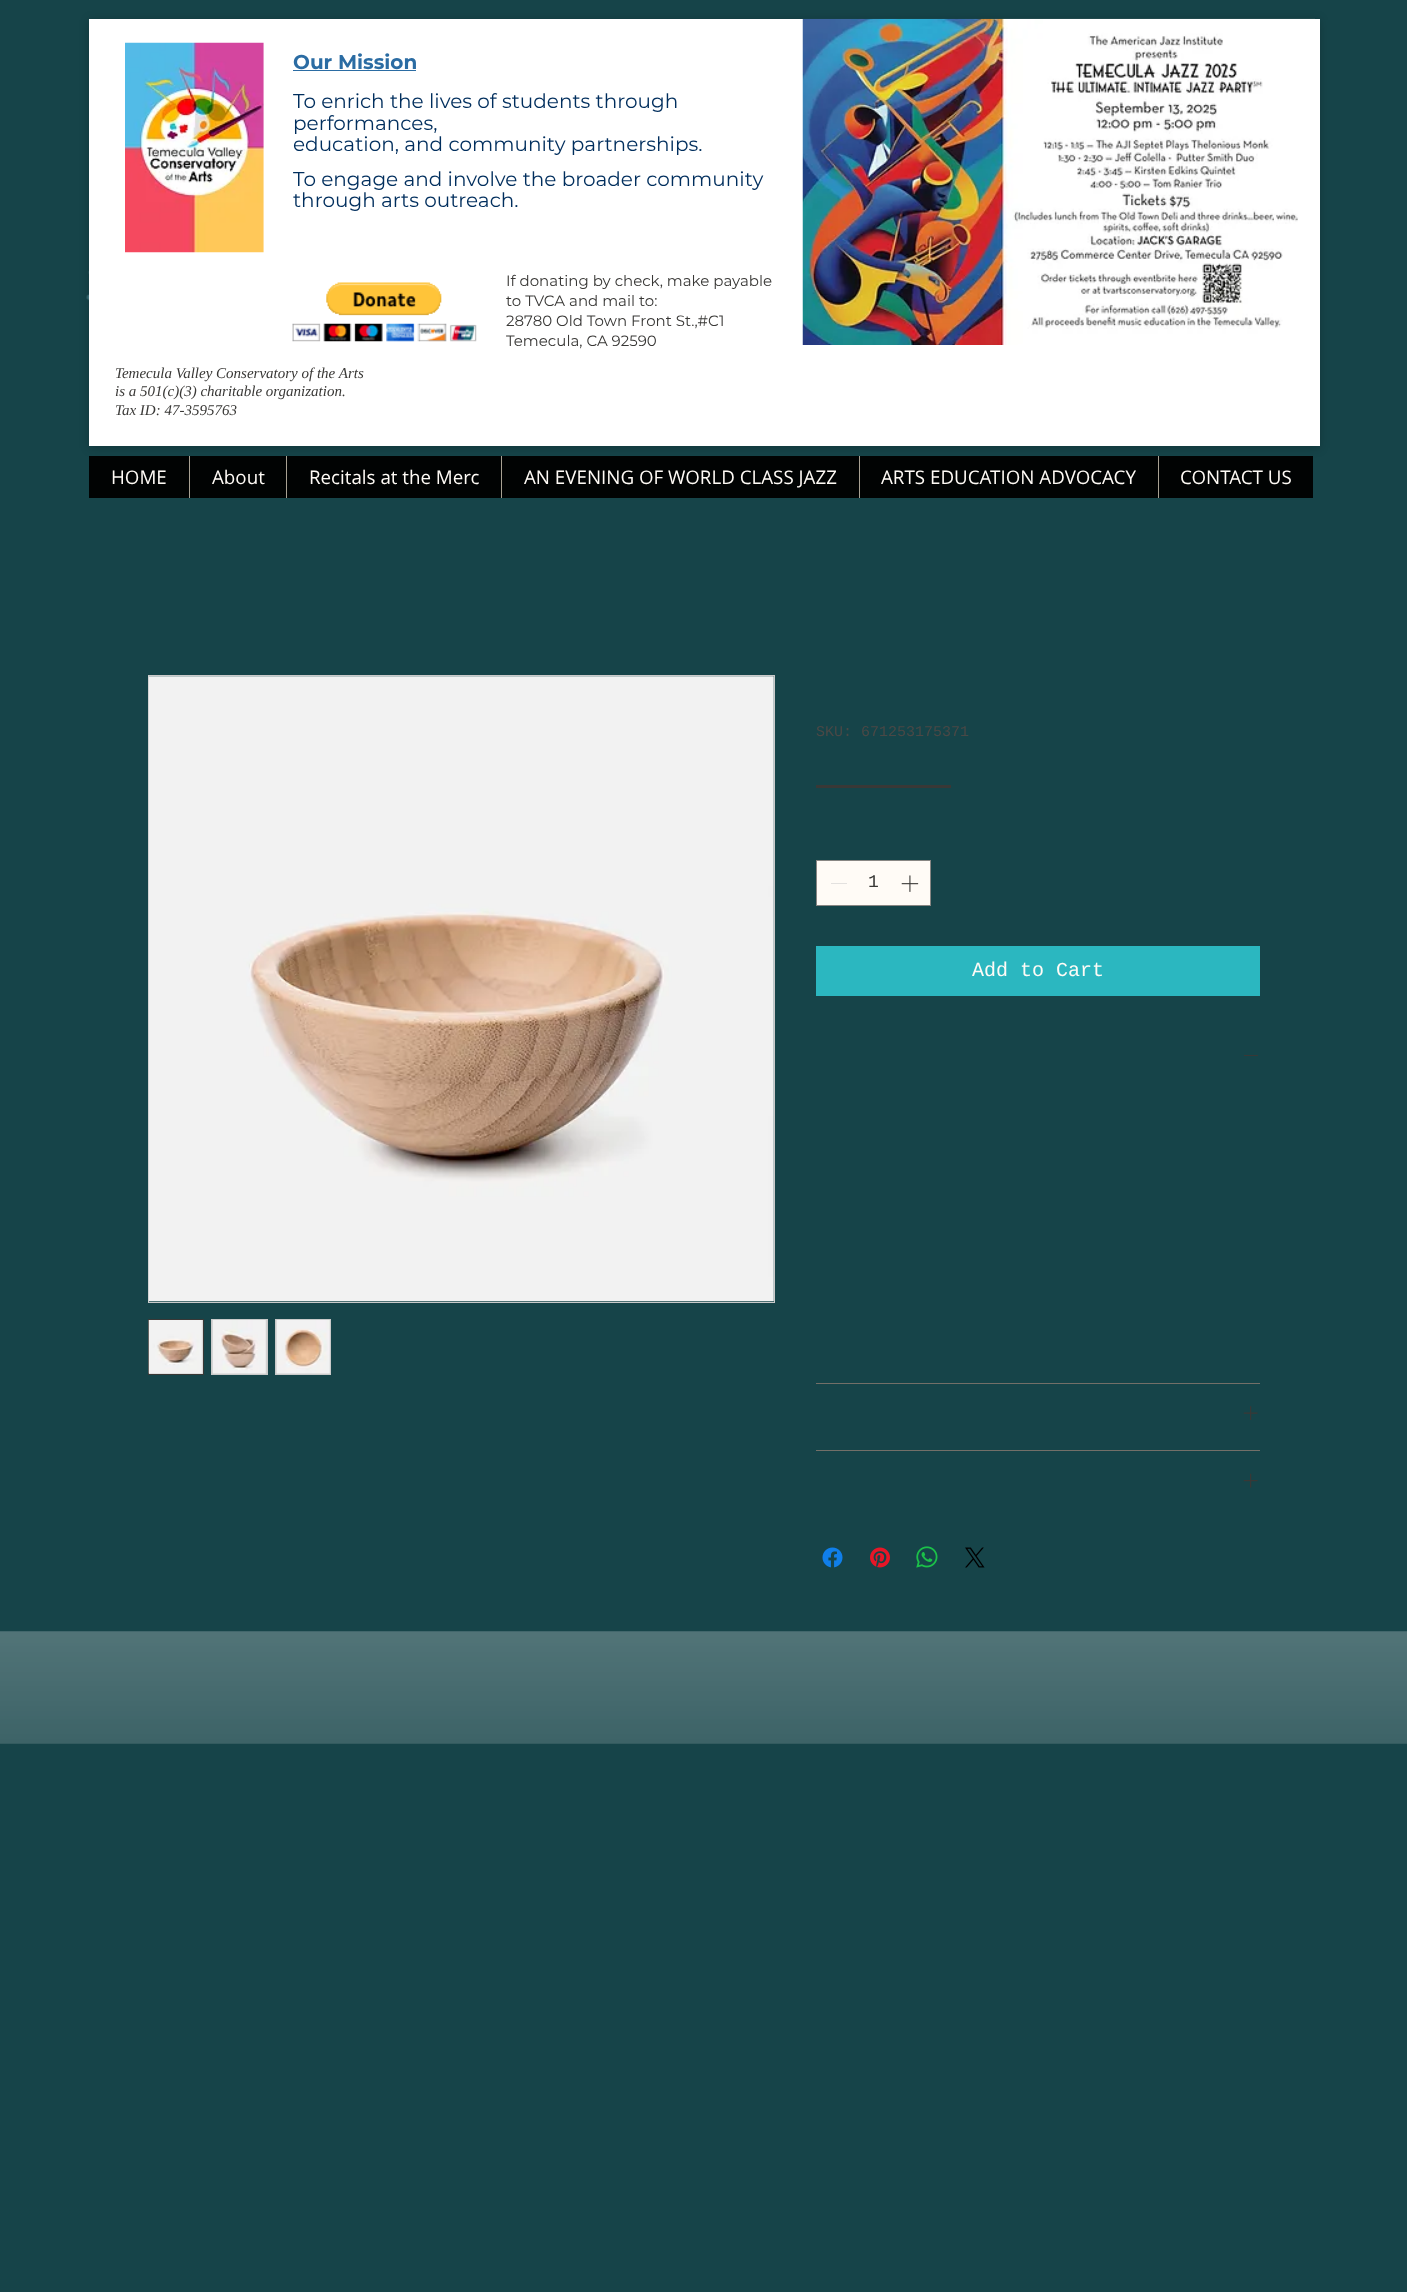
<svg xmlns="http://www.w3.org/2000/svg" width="1407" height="2292">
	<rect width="100%" height="100%" fill="#164449" />
	<image x="86" y="271" width="3" height="30" href="assets/img1.png" />
	<rect x="89" y="20" width="1231" height="428" fill="#000000" fill-opacity="0.2" filter="blur(5px)" />
	<rect x="89" y="19" width="1231" height="427" fill="#FFFFFF" />
	<image x="125" y="42" width="139" height="211" href="assets/img2.png" />
	<text x="293" y="69" font-family="Montserrat" font-size="20" font-weight="700" fill="#2B6CA3">Our Mission</text>
	<rect x="293" y="70" width="123" height="1" fill="#2B6CA3" />
	<g font-family="Montserrat" font-size="20" fill="#002E5D">
		<text x="293" y="108">To enrich the lives of students through</text>
		<text x="293" y="130">performances,</text>
		<text x="293" y="151">education, and community partnerships.</text>
		<text x="293" y="186">To engage and involve the broader community</text>
		<text x="293" y="207">through arts outreach.</text>
	</g>
	<image x="802" y="18" width="513" height="327" href="assets/img3.png" />
	<image x="292" y="282" width="185" height="60" href="assets/img4.png" />
	<g font-family="Montserrat" font-size="15" fill="#393836">
		<text x="506" y="286">If donating by check, make payable</text>
		<text x="506" y="306">to TVCA and mail to:</text>
		<text x="506" y="326">28780 Old Town Front St.,#C1</text>
		<text x="506" y="346">Temecula, CA 92590</text>
	</g>
	<g font-family="Liberation Serif" font-size="15" font-style="italic" fill="#393836">
		<text x="115" y="378">Temecula Valley Conservatory of the Arts</text>
		<text x="115" y="396">is a 501(c)(3) charitable organization.</text>
		<text x="115" y="415">Tax ID: 47-3595763</text>
	</g>
	<rect x="89" y="456" width="1224" height="42" fill="#010303" />
	<text x="111" y="484" font-family="Open Sans" font-size="18.75" fill="#FFFBF6">HOME</text>
	<rect x="189" y="456" width="1" height="42" fill="#A8A193" />
	<text x="212" y="484" font-family="Open Sans" font-size="18.75" fill="#FFFBF6">About</text>
	<rect x="286" y="456" width="1" height="42" fill="#A8A193" />
	<text x="309" y="484" font-family="Open Sans" font-size="18.75" fill="#FFFBF6">Recitals at the Merc</text>
	<rect x="501" y="456" width="1" height="42" fill="#A8A193" />
	<text x="524" y="484" font-family="Open Sans" font-size="18.75" fill="#FFFBF6">AN EVENING OF WORLD CLASS JAZZ</text>
	<rect x="859" y="456" width="1" height="42" fill="#A8A193" />
	<text x="881" y="484" font-family="Open Sans" font-size="18.75" fill="#FFFBF6">ARTS EDUCATION ADVOCACY</text>
	<rect x="1158" y="456" width="1" height="42" fill="#A8A193" />
	<text x="1180" y="484" font-family="Open Sans" font-size="18.75" fill="#FFFBF6">CONTACT US</text>
	<rect x="148.5" y="675.5" width="626" height="627" fill="none" stroke="#CACACA" />
	<image x="148" y="676" width="626" height="626" href="assets/img5.png" />
	<rect x="148.5" y="1319.5" width="55" height="55" fill="#CACACA" stroke="#393836" />
	<image x="148" y="1320" width="55" height="54" href="assets/img6.png" />
	<rect x="211" y="1319" width="57" height="56" fill="#CACACA" />
	<image x="212" y="1320" width="55" height="54" href="assets/img7.png" />
	<rect x="275" y="1319" width="56" height="56" fill="#CACACA" />
	<image x="276" y="1320" width="54" height="54" href="assets/img8.png" />
	<text x="816" y="736" font-family="Liberation Mono" font-size="15" fill="#4A4846">SKU: 671253175371</text>
	<rect x="816" y="785" width="135" height="3" fill="#393836" />
	<rect x="816.5" y="860.5" width="114" height="45" fill="#FFFBF6" stroke="#888683" />
	<rect x="831" y="883" width="16" height="1" fill="#E3E1DF" />
	<text x="868" y="887" font-family="Liberation Mono" font-size="18" fill="#393836">1</text>
	<image x="901" y="875" width="18" height="17" href="assets/img9.png" />
	<rect x="816" y="946" width="444" height="50" fill="#2BB7C0" />
	<text x="972" y="976" font-family="Liberation Mono" font-size="20" fill="#FFFBF6">Add to Cart</text>
	<rect x="816" y="1383" width="444" height="1" fill="#736F68" />
	<rect x="1244" y="1055" width="14" height="1" fill="#393836" />
	<rect x="816" y="1450" width="444" height="1" fill="#736F68" />
	<image x="1243" y="1406" width="15" height="14" href="assets/img10.png" />
	<image x="1243" y="1473" width="15" height="15" href="assets/img11.png" />
	<image x="822" y="1547" width="21" height="21" href="assets/img12.png" />
	<image x="870" y="1547" width="20" height="21" href="assets/img13.png" />
	<image x="916" y="1546" width="22" height="22" href="assets/img14.png" />
	<image x="965" y="1547" width="20" height="21" href="assets/img15.png" />
	<image x="0" y="1631" width="1407" height="113" href="assets/img16.png" />
</svg>
